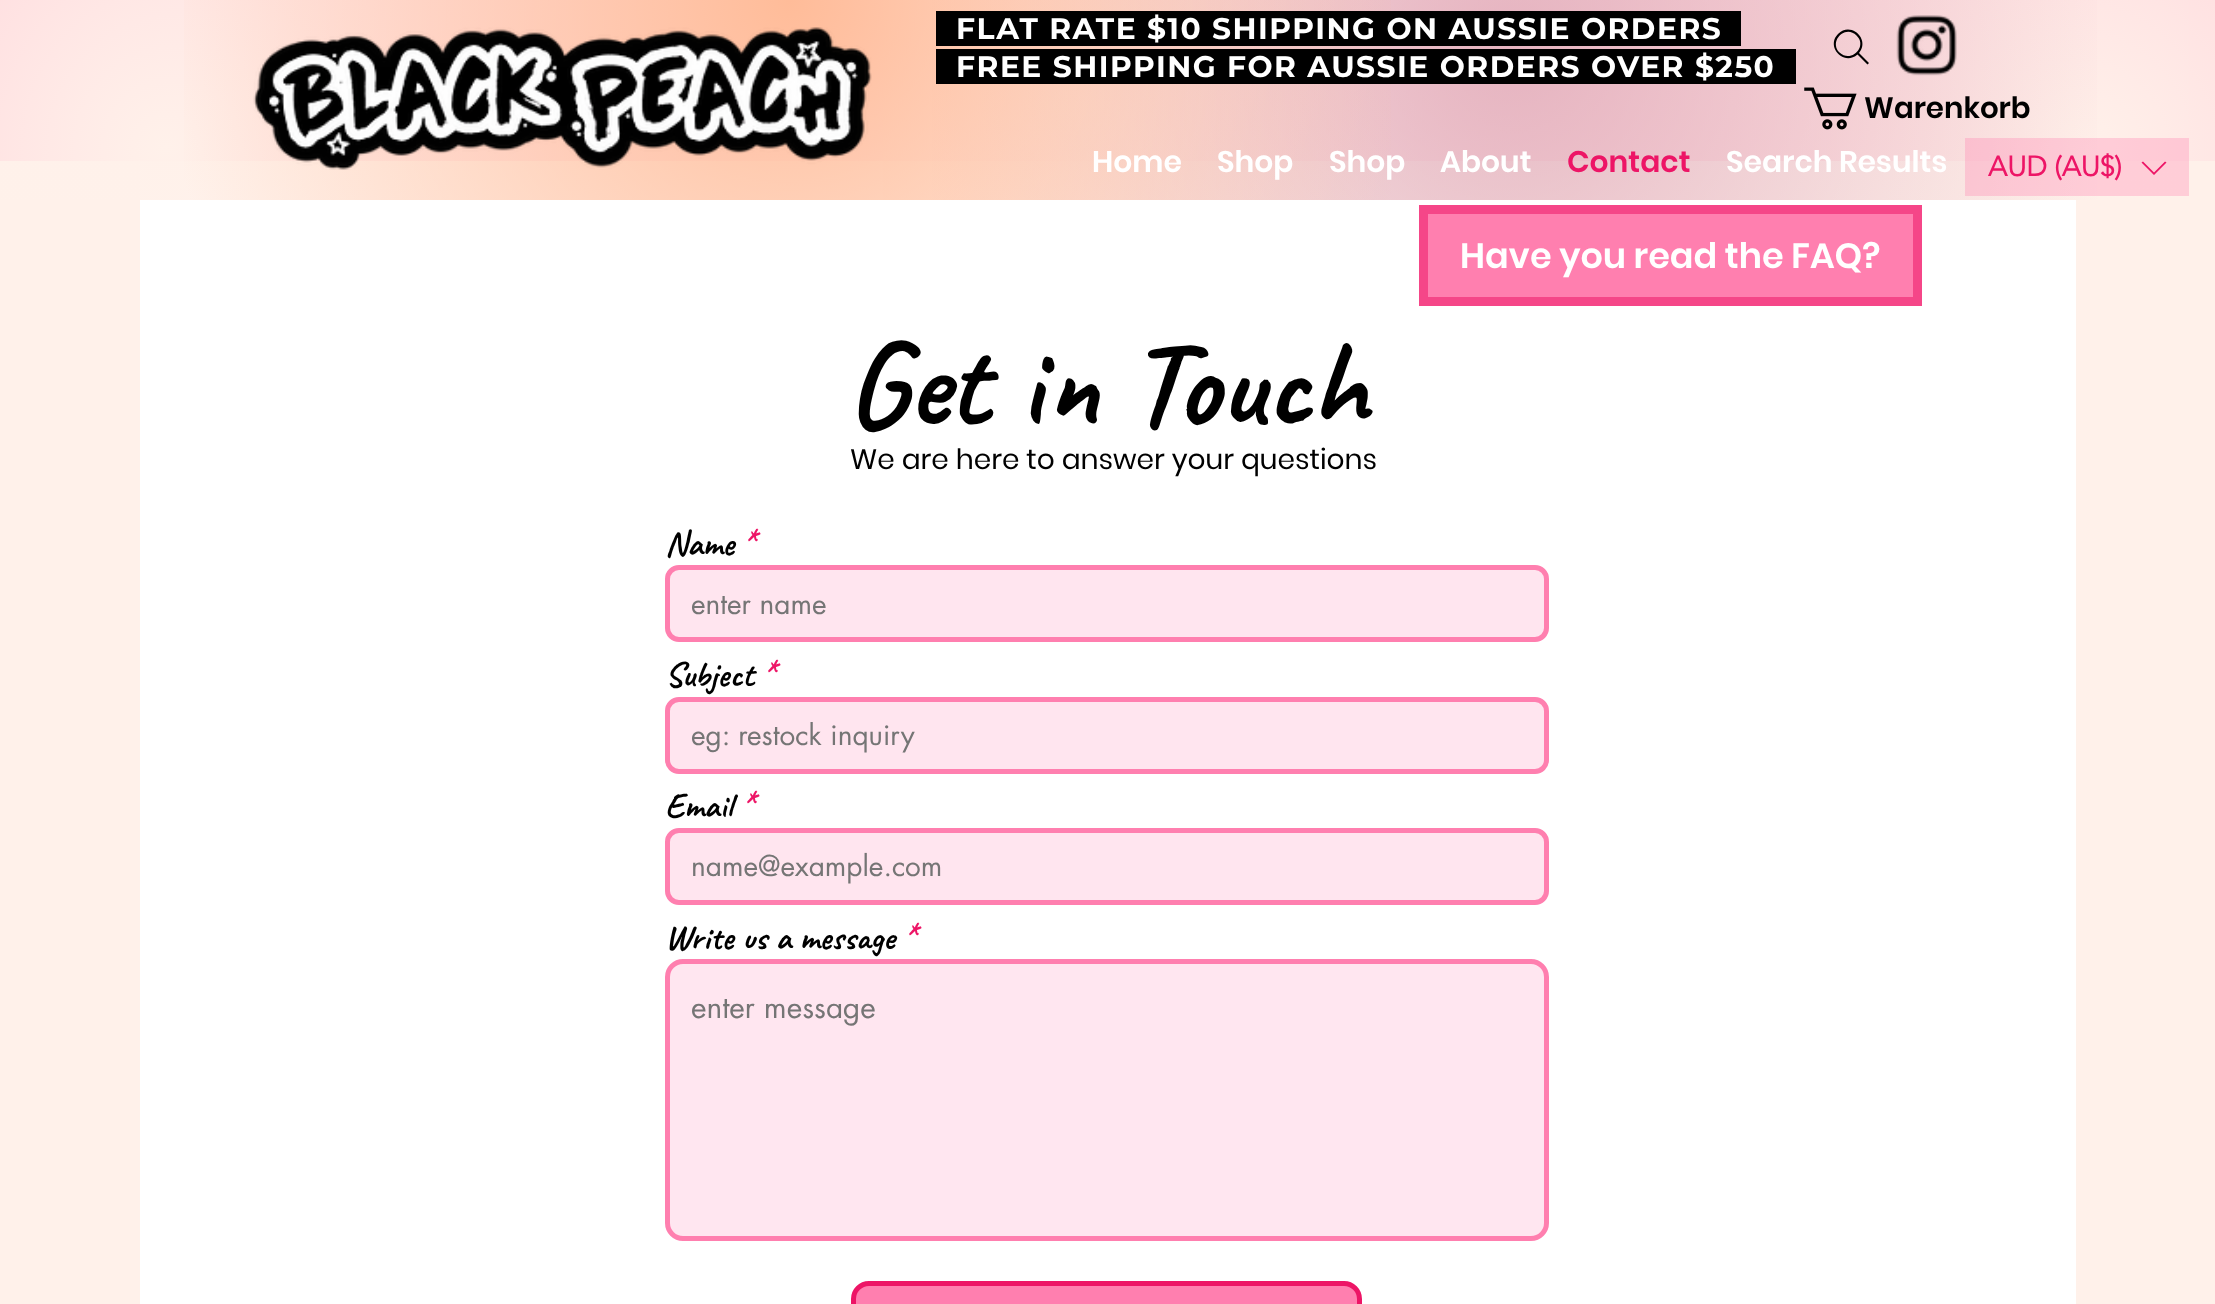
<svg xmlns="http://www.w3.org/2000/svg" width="2215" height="1304">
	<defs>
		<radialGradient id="g1" gradientUnits="userSpaceOnUse" cx="1083" cy="99" r="1137"><stop offset="0" stop-color="#FFFFFF" /><stop offset="1" stop-color="#FFFFFF" stop-opacity="0" /></radialGradient>
		<radialGradient id="g2" gradientUnits="userSpaceOnUse" cx="166" cy="148" r="2055"><stop offset="0" stop-color="#FFF1EA" /><stop offset="0.73" stop-color="#FFF1EA" stop-opacity="0" /></radialGradient>
		<radialGradient id="g3" gradientUnits="userSpaceOnUse" cx="2085" cy="151" r="2090"><stop offset="0" stop-color="#FFF1EA" /><stop offset="0.71" stop-color="#FFF1EA" stop-opacity="0" /></radialGradient>
		<radialGradient id="g4" gradientUnits="userSpaceOnUse" cx="1513" cy="49" r="1520"><stop offset="0" stop-color="#DFA7B6" stop-opacity="0.8" /><stop offset="0.4" stop-color="#DFA7B6" stop-opacity="0" /></radialGradient>
		<radialGradient id="g5" gradientUnits="userSpaceOnUse" cx="790" cy="0" r="1439"><stop offset="0" stop-color="#FFBC99" /><stop offset="0.44" stop-color="#FFBC99" stop-opacity="0" /></radialGradient>
	</defs>
	<rect width="100%" height="100%" fill="#FF7FAF" />
	<rect x="0" y="161" width="2215" height="1143" fill="#FFF1EA" />
	<rect x="140" y="161" width="1936" height="1143" fill="#FFFFFF" />
	<rect x="0" y="0" width="2189" height="200" fill="url(#g1)" />
	<rect x="0" y="0" width="1592" height="200" fill="url(#g2)" />
	<rect x="883" y="0" width="1332" height="200" fill="url(#g3)" />
	<rect x="932" y="0" width="1165" height="200" fill="url(#g4)" />
	<rect x="184" y="0" width="1207" height="200" fill="url(#g5)" />
	<image x="253" y="27" width="619" height="143" href="assets/img1.png" />
	<rect x="936" y="11" width="805" height="35" fill="#000000" />
	<text x="956" y="39" font-family="Montserrat" font-size="29.75" font-weight="700" letter-spacing="1.5" fill="#FFFFFF">FLAT RATE $10 SHIPPING ON AUSSIE ORDERS</text>
	<rect x="936" y="49" width="860" height="35" fill="#000000" />
	<text x="956" y="77" font-family="Montserrat" font-size="29.75" font-weight="700" letter-spacing="1.5" fill="#FFFFFF">FREE SHIPPING FOR AUSSIE ORDERS OVER $250</text>
	<path d="M1839.5 52.5C1828.5 41 1845.5 24 1856.5 35.5C1868 46.5 1851 63.5 1839.5 52.5ZM1869 63L1859 53C1870.5 39.5 1851 21 1838 34C1825.5 46.5 1843.5 66.5 1857.5 54.5L1867.5 64.5Z" fill="#000000" fill-rule="evenodd" />
	<image x="1896" y="15" width="61" height="61" href="assets/img2.png" />
	<image x="1804" y="87" width="53" height="43" href="assets/img3.png" />
	<text x="1864" y="118" font-family="Poppins" font-size="29.25" font-weight="600" fill="#000000">Warenkorb</text>
	<g font-family="Poppins" font-size="29.75" font-weight="600" fill="#FFFFFF">
		<text x="1092" y="172">Home</text>
		<text x="1217" y="172">Shop</text>
		<text x="1329" y="172">Shop</text>
		<text x="1440" y="172">About</text>
	</g>
	<text x="1567" y="172" font-family="Poppins" font-size="29.75" font-weight="600" fill="#ED1566">Contact</text>
	<text x="1726" y="172" font-family="Poppins" font-size="29.75" font-weight="600" fill="#FFFFFF">Search Results</text>
	<rect x="1965" y="138" width="224" height="58" fill="#FF7FAF" fill-opacity="0.31" />
	<text x="1988" y="176" font-family="'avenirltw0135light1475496'" font-size="28" font-weight="700" fill="#ED1566">AUD (AU$)</text>
	<path d="M2165 161.5L2166.5 162.5L2154 175L2141.5 162.5L2143 161.5L2154 172.5Z" fill="#ED1566" fill-rule="evenodd" />
	<rect x="1423.5" y="209.5" width="494" height="92" fill="#FF7FAF" stroke="#F54688" stroke-width="9" />
	<text x="1460" y="268" font-family="Poppins" font-size="35" font-weight="600" fill="#FFFFFF">Have you read the FAQ?</text>
	<text x="846" y="424" font-family="Caveat" font-size="122.5" font-weight="700" fill="#000000">Get in Touch</text>
	<text x="850" y="469" font-family="Poppins" font-size="28" fill="#000000">We are here to answer your questions</text>
	<text x="665" y="555" font-family="Caveat" font-size="35" font-weight="700" fill="#000000">Name</text>
	<text x="742" y="555" font-family="Caveat" font-size="35" font-weight="700" fill="#ED1566">*</text>
	<rect x="667.5" y="567.5" width="879" height="72" rx="11.5" fill="#FFE5EF" stroke="#FF7FAF" stroke-width="5" />
	<text x="691" y="614" font-family="futura" font-size="28" fill="#757575">enter name</text>
	<text x="665" y="686" font-family="Caveat" font-size="35" font-weight="700" fill="#000000">Subject</text>
	<text x="762" y="686" font-family="Caveat" font-size="35" font-weight="700" fill="#ED1566">*</text>
	<rect x="667.5" y="699.5" width="879" height="72" rx="11.5" fill="#FFE5EF" stroke="#FF7FAF" stroke-width="5" />
	<text x="691" y="745" font-family="futura" font-size="28" fill="#757575">eg: restock inquiry</text>
	<text x="665" y="817" font-family="Caveat" font-size="35" font-weight="700" fill="#000000">Email</text>
	<text x="741" y="817" font-family="Caveat" font-size="35" font-weight="700" fill="#ED1566">*</text>
	<rect x="667.5" y="830.5" width="879" height="72" rx="11.5" fill="#FFE5EF" stroke="#FF7FAF" stroke-width="5" />
	<text x="691" y="876" font-family="futura" font-size="28" fill="#757575">name@example.com</text>
	<text x="665" y="949" font-family="Caveat" font-size="35" font-weight="700" fill="#000000">Write us a message</text>
	<text x="903" y="949" font-family="Caveat" font-size="35" font-weight="700" fill="#ED1566">*</text>
	<rect x="667.5" y="961.5" width="879" height="277" rx="15.5" fill="#FFE6F0" stroke="#FF7FAF" stroke-width="5" />
	<text x="691" y="1018" font-family="futura" font-size="29.75" fill="#757575">enter message</text>
	<rect x="853.5" y="1283.5" width="506" height="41" rx="15.5" fill="#FF7FAF" stroke="#ED1566" stroke-width="5" />
</svg>
